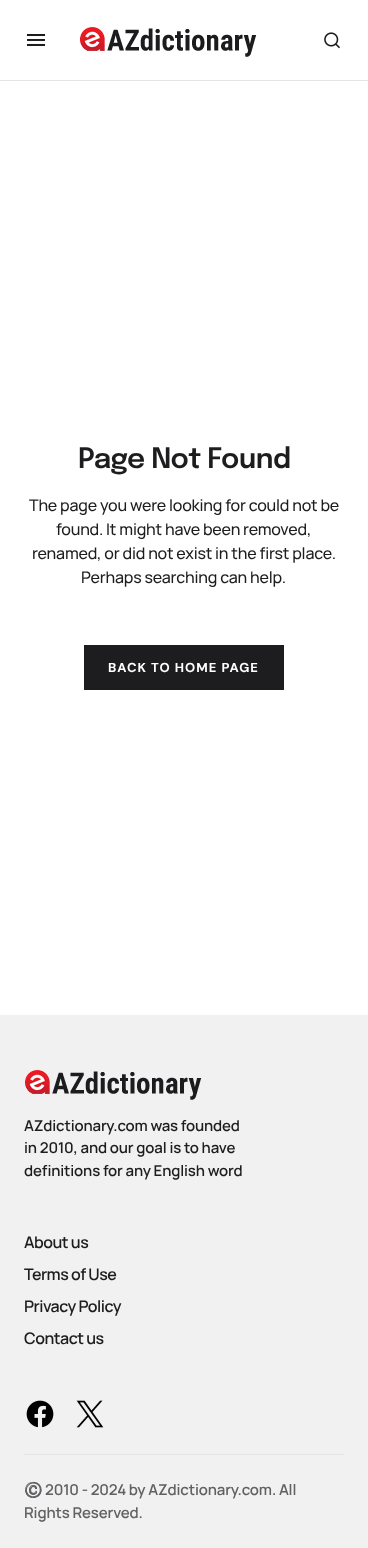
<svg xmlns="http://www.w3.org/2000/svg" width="368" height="1548">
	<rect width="100%" height="100%" fill="#FFFFFF" />
	<image x="27" y="34" width="18" height="12" href="assets/img1.png" />
	<image x="80" y="27" width="177" height="30" href="assets/img2.png" />
	<image x="324" y="32" width="16" height="17" href="assets/img3.png" />
	<rect x="0" y="80" width="368" height="1" fill="#E4E4E4" />
	<text x="78" y="468" font-family="Epilogue" font-size="28" font-weight="600" letter-spacing="-0.5" fill="#1D1D1F">Page Not Found</text>
	<g font-family="'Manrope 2'" font-size="16" font-weight="200" letter-spacing="-0.2" fill="#1D1D1F">
		<text x="29" y="511">The page you were looking for could not be</text>
		<text x="56" y="535">found. It might have been removed,</text>
		<text x="32" y="559">renamed, or did not exist in the first place.</text>
		<text x="81" y="583">Perhaps searching can help.</text>
	</g>
	<rect x="84" y="645" width="200" height="45" fill="#1D1D1F" />
	<text x="108" y="672" font-family="DM Sans" font-size="13" font-weight="700" letter-spacing="1" fill="#FFFFFF">BACK TO HOME PAGE</text>
	<rect x="0" y="1015" width="368" height="533" fill="#F1F1F2" />
	<image x="25" y="1070" width="177" height="30" href="assets/img4.png" />
	<g font-family="Manrope" font-size="15" font-weight="200" letter-spacing="-0.15" fill="#1D1D1F">
		<text x="24" y="1131">AZdictionary.com was founded</text>
		<text x="24" y="1153">in 2010, and our goal is to have</text>
		<text x="24" y="1176">definitions for any English word</text>
	</g>
	<g font-family="Manrope" font-size="16" font-weight="200" letter-spacing="-0.5" fill="#1D1D1F">
		<text x="24" y="1248">About us</text>
		<text x="24" y="1280">Terms of Use</text>
		<text x="24" y="1312">Privacy Policy</text>
		<text x="24" y="1344">Contact us</text>
	</g>
	<image x="26" y="1400" width="28" height="28" href="assets/img5.png" />
	<image x="76" y="1400" width="28" height="28" href="assets/img6.png" />
	<rect x="24" y="1454" width="320" height="1" fill="#E4E4E4" />
	<text x="24" y="1495" font-family="Noto Color Emoji" font-size="15" font-weight="700" letter-spacing="-0.15" fill="#616162">©️</text>
	<g font-family="Manrope" font-size="15" font-weight="200" letter-spacing="-0.15" fill="#616162">
		<text x="45" y="1495">2010 - 2024 by AZdictionary.com. All</text>
		<text x="24" y="1518">Rights Reserved.</text>
	</g>
</svg>
